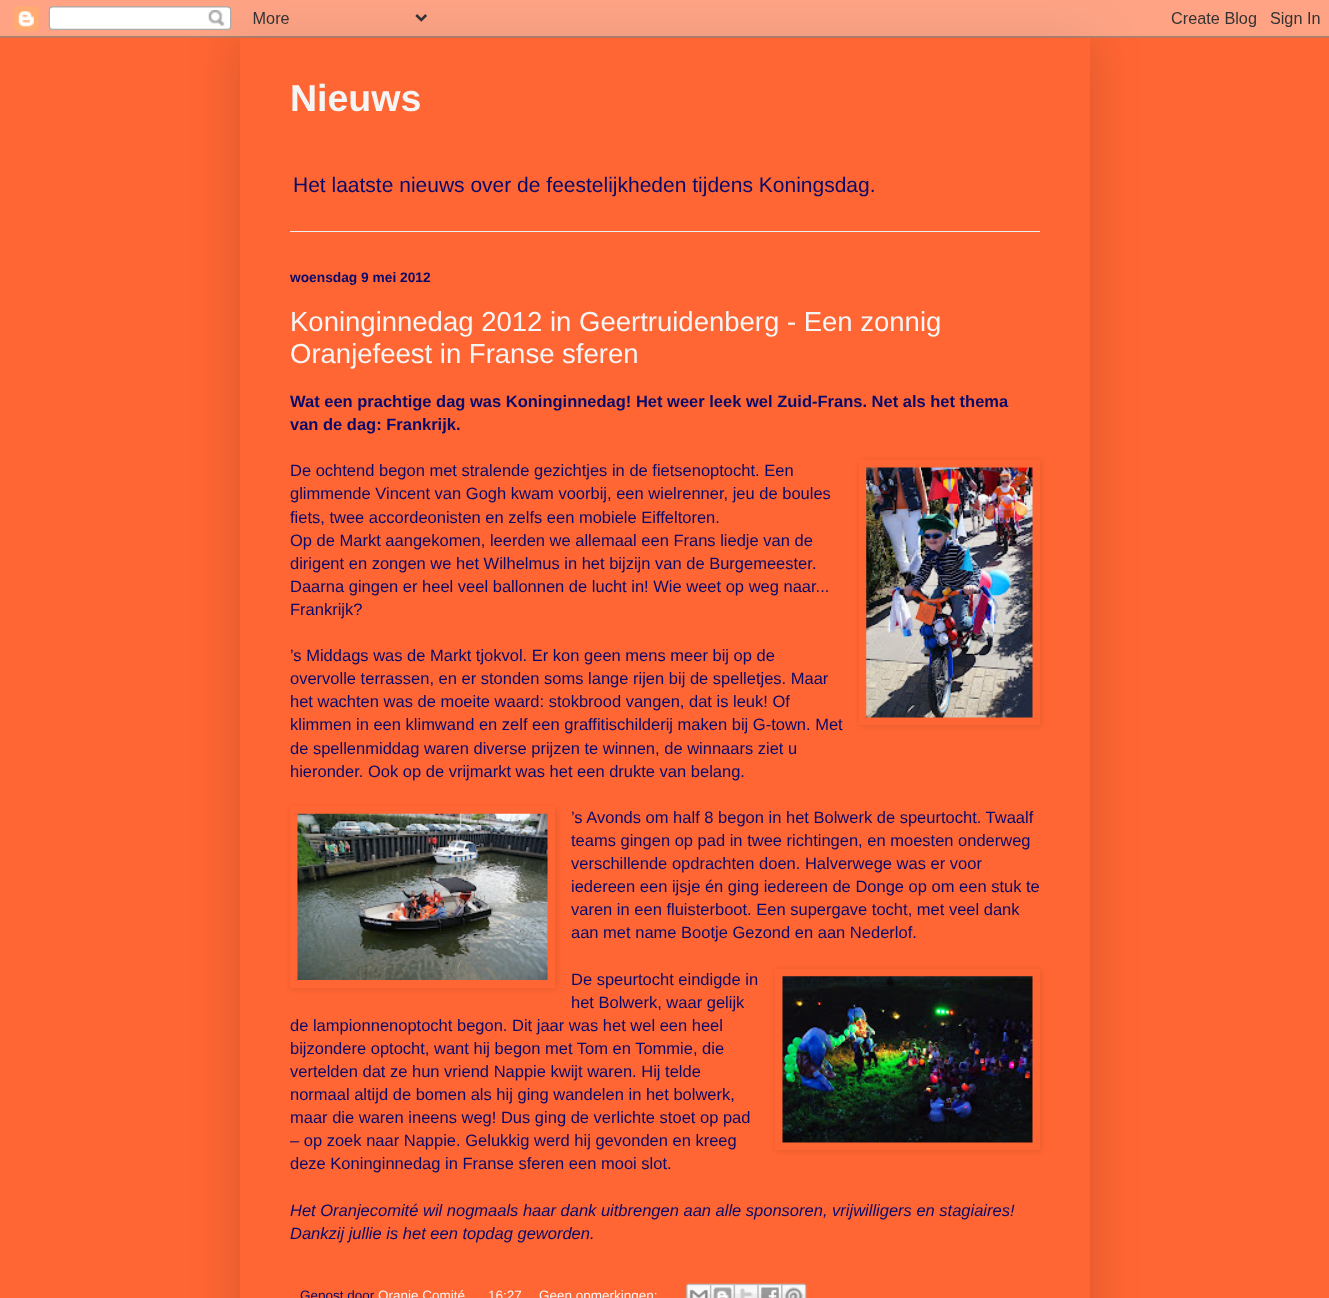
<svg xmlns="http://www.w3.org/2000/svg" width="1329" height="1298">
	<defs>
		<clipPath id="clip1"><path d="M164 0H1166V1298H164ZM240 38H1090V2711H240Z" clip-rule="evenodd" /></clipPath>
		<clipPath id="clip2"><path d="M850 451H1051V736H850ZM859 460H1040V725H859Z" clip-rule="evenodd" /></clipPath>
		<clipPath id="clip3"><path d="M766 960H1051V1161H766ZM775 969H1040V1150H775Z" clip-rule="evenodd" /></clipPath>
	</defs>
	<rect width="100%" height="100%" fill="#FF6633" />
	<g clip-path="url(#clip1)">
		<rect x="240" y="38" width="850" height="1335" fill="#000000" fill-opacity="0.15" filter="blur(25px)" />
	</g>
	<image x="0" y="0" width="1329" height="38" href="assets/img1.png" />
	<text x="290" y="111" font-family="Liberation Sans" font-size="37.5" font-weight="700" fill="#F5F5F5">Nieuws</text>
	<text x="293" y="192" font-family="Liberation Sans" font-size="21" fill="#0A0A6A">Het laatste nieuws over de feestelijkheden tijdens Koningsdag.</text>
	<rect x="290" y="231" width="750" height="1" fill="#EEEEEE" />
	<text x="290" y="282" font-family="Liberation Sans" font-size="13.75" font-weight="700" fill="#0A0A6A">woensdag 9 mei 2012</text>
	<g font-family="Liberation Sans" font-size="27.5" fill="#F5F5F5">
		<text x="290" y="331">Koninginnedag 2012 in Geertruidenberg - Een zonnig</text>
		<text x="290" y="363">Oranjefeest in Franse sferen</text>
	</g>
	<g font-family="Liberation Sans" font-size="16.5" font-weight="700" fill="#0A0A6A">
		<text x="290" y="407">Wat een prachtige dag was Koninginnedag! Het weer leek wel Zuid-Frans. Net als het thema</text>
		<text x="290" y="430">van de dag: Frankrijk.</text>
	</g>
	<text x="290" y="476" font-family="Liberation Sans" font-size="16.5" fill="#0A0A6A">De ochtend begon met stralende gezichtjes in de fietsenoptocht. Een</text>
	<g clip-path="url(#clip2)">
		<rect x="860" y="461" width="181" height="265" fill="#000000" fill-opacity="0.1" filter="blur(3px)" />
	</g>
	<image x="866" y="467" width="167" height="251" href="assets/img2.png" />
	<g font-family="Liberation Sans" font-size="16.5" fill="#0A0A6A">
		<text x="290" y="499">glimmende Vincent van Gogh kwam voorbij, een wielrenner, jeu de boules</text>
		<text x="290" y="523">fiets, twee accordeonisten en zelfs een mobiele Eiffeltoren.</text>
		<text x="290" y="546">Op de Markt aangekomen, leerden we allemaal een Frans liedje van de</text>
		<text x="290" y="569">dirigent en zongen we het Wilhelmus in het bijzijn van de Burgemeester.</text>
		<text x="290" y="592">Daarna gingen er heel veel ballonnen de lucht in! Wie weet op weg naar...</text>
		<text x="290" y="615">Frankrijk?</text>
		<text x="290" y="661">’s Middags was de Markt tjokvol. Er kon geen mens meer bij op de</text>
		<text x="290" y="684">overvolle terrassen, en er stonden soms lange rijen bij de spelletjes. Maar</text>
		<text x="290" y="707">het wachten was de moeite waard: stokbrood vangen, dat is leuk! Of</text>
		<text x="290" y="730">klimmen in een klimwand en zelf een graffitischilderij maken bij G-town. Met</text>
		<text x="290" y="754">de spellenmiddag waren diverse prijzen te winnen, de winnaars ziet u</text>
		<text x="290" y="777">hieronder. Ook op de vrijmarkt was het een drukte van belang.</text>
	</g>
	<rect x="291" y="808" width="265" height="181" fill="#000000" fill-opacity="0.1" filter="blur(3px)" />
	<rect x="290" y="806" width="265" height="182" fill="#FF6633" />
	<image x="297" y="813" width="251" height="167" href="assets/img3.png" />
	<g font-family="Liberation Sans" font-size="16.5" fill="#0A0A6A">
		<text x="571" y="823">’s Avonds om half 8 begon in het Bolwerk de speurtocht. Twaalf</text>
		<text x="571" y="846">teams gingen op pad in twee richtingen, en moesten onderweg</text>
		<text x="571" y="869">verschillende opdrachten doen. Halverwege was er voor</text>
		<text x="571" y="892">iedereen een ijsje én ging iedereen de Donge op om een stuk te</text>
		<text x="571" y="915">varen in een fluisterboot. Een supergave tocht, met veel dank</text>
		<text x="571" y="938">aan met name Bootje Gezond en aan Nederlof.</text>
		<text x="571" y="985">De speurtocht eindigde in</text>
	</g>
	<g clip-path="url(#clip3)">
		<rect x="776" y="970" width="265" height="181" fill="#000000" fill-opacity="0.1" filter="blur(3px)" />
	</g>
	<image x="782" y="976" width="251" height="167" href="assets/img4.png" />
	<g font-family="Liberation Sans" font-size="16.5" fill="#0A0A6A">
		<text x="571" y="1008">het Bolwerk, waar gelijk</text>
		<text x="290" y="1031">de lampionnenoptocht begon. Dit jaar was het wel een heel</text>
		<text x="290" y="1054">bijzondere optocht, want hij begon met Tom en Tommie, die</text>
		<text x="290" y="1077">vertelden dat ze hun vriend Nappie kwijt waren. Hij telde</text>
		<text x="290" y="1100">normaal altijd de bomen als hij ging wandelen in het bolwerk,</text>
		<text x="290" y="1123">maar die waren ineens weg! Dus ging de verlichte stoet op pad</text>
		<text x="290" y="1146">– op zoek naar Nappie. Gelukkig werd hij gevonden en kreeg</text>
		<text x="290" y="1169">deze Koninginnedag in Franse sferen een mooi slot.</text>
	</g>
	<g font-family="Liberation Sans" font-size="16.5" font-style="italic" fill="#0A0A6A">
		<text x="290" y="1216">Het Oranjecomité wil nogmaals haar dank uitbrengen aan alle sponsoren, vrijwilligers en stagiaires!</text>
		<text x="290" y="1239">Dankzij jullie is het een topdag geworden.</text>
	</g>
	<text x="300" y="1300" font-family="Liberation Sans" font-size="13.5" fill="#0A0A6A">Gepost door</text>
	<g font-family="Liberation Sans" font-size="13.5" fill="#F5F5F5">
		<text x="378" y="1300">Oranje Comité</text>
		<text x="488" y="1300">16:27</text>
		<text x="539" y="1300">Geen opmerkingen:</text>
	</g>
	<image x="686" y="1283" width="26" height="15" href="assets/img5.png" />
	<image x="710" y="1283" width="25" height="15" href="assets/img6.png" />
	<image x="733" y="1283" width="26" height="15" href="assets/img7.png" />
	<image x="757" y="1283" width="26" height="15" href="assets/img8.png" />
	<image x="781" y="1283" width="26" height="15" href="assets/img9.png" />
</svg>
